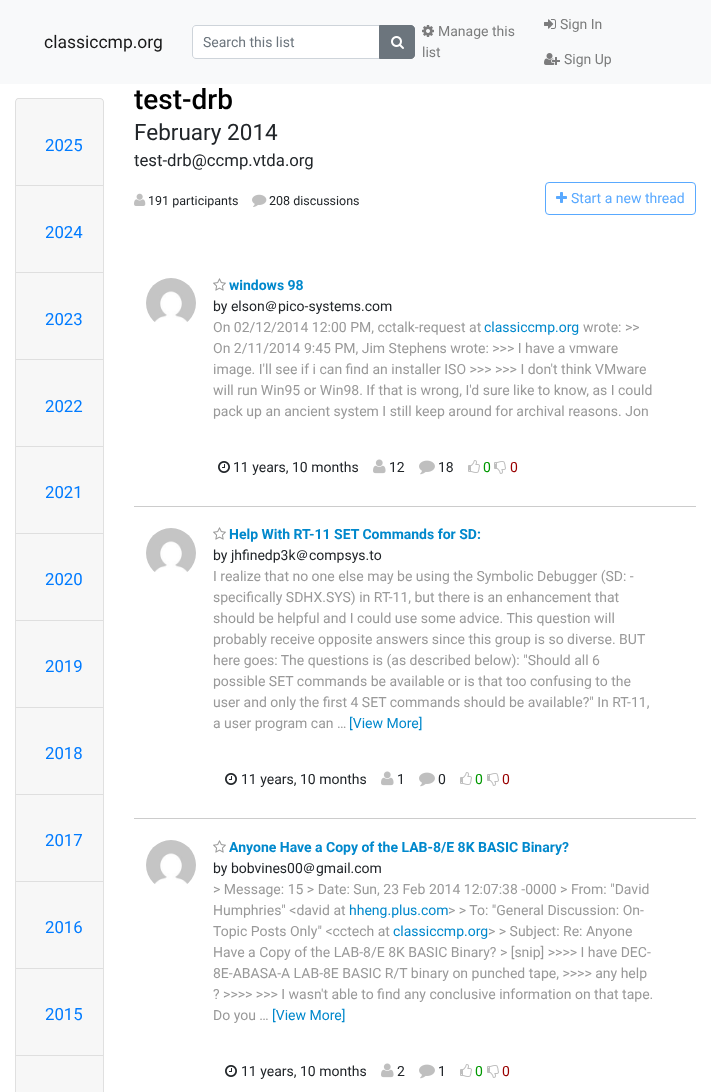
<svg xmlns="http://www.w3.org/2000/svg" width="711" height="1092">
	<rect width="100%" height="100%" fill="#FFFFFF" />
	<rect x="0" y="0" width="711" height="84" fill="#F8F9FA" />
	<text x="44" y="48" font-family="Roboto" font-size="17.5" fill="#191919">classiccmp.org</text>
	<path d="M195.5 26H379V58H195.5C194 58 193 57 193 55.5V28.5C193 27 194 26 195.5 26Z" fill="#FFFFFF" />
	<path d="M196 25.5H379.5V58.5H196C194 58.5 192.5 57 192.5 55V29C192.5 27 194 25.5 196 25.5Z" fill="none" stroke="#CED4DA" />
	<text x="203" y="47" font-family="Roboto" font-size="14" fill="#6C757D">Search this list</text>
	<path d="M379.5 25.5H411C413 25.5 414.5 27 414.5 29V55C414.5 57 413 58.5 411 58.5H379.5Z" fill="#6C757D" stroke="#6C757D" />
	<image x="391" y="36" width="13" height="13" href="assets/img1.png" />
	<image x="422" y="25" width="12" height="12" href="assets/img2.png" />
	<g font-family="Roboto" font-size="14" fill="#7C7D7D">
		<text x="438" y="36">Manage this</text>
		<text x="422" y="57">list</text>
	</g>
	<image x="544" y="19" width="12" height="10" href="assets/img3.png" />
	<text x="560" y="29" font-family="Roboto" font-size="14" fill="#7C7D7D">Sign In</text>
	<image x="544" y="53" width="16" height="12" href="assets/img4.png" />
	<text x="564" y="64" font-family="Roboto" font-size="14" fill="#7C7D7D">Sign Up</text>
	<path d="M18 98H100C102 98 104 100 104 102V185H15V102C15 100 17 98 18 98ZM18 99H100C102 99 103 100 103 102V185H16V102C16 100 17 99 18 99Z" fill="#DFDFDF" fill-rule="evenodd" />
	<rect x="16" y="99" width="87" height="86" fill="#000000" fill-opacity="0.03" />
	<text x="45" y="151" font-family="Roboto" font-size="16.75" fill="#007BFF">2025</text>
	<path d="M15 185H104L103 186H16Z" fill="#DFDFDF" />
	<path d="M104 185V272H103V186Z" fill="#000000" fill-opacity="0.12" />
	<path d="M15 272V185L16 186V272Z" fill="#000000" fill-opacity="0.12" />
	<rect x="16" y="186" width="87" height="86" fill="#F7F7F7" />
	<text x="45" y="238" font-family="Roboto" font-size="16.75" fill="#007BFF">2024</text>
	<path d="M15 272H104L103 273H16Z" fill="#DFDFDF" />
	<path d="M104 272V359H103V273Z" fill="#000000" fill-opacity="0.12" />
	<path d="M15 359V272L16 273V359Z" fill="#000000" fill-opacity="0.12" />
	<rect x="16" y="273" width="87" height="86" fill="#F7F7F7" />
	<text x="45" y="325" font-family="Roboto" font-size="16.75" fill="#007BFF">2023</text>
	<path d="M15 359H104L103 360H16Z" fill="#DFDFDF" />
	<path d="M104 359V446H103V360Z" fill="#000000" fill-opacity="0.12" />
	<path d="M15 446V359L16 360V446Z" fill="#000000" fill-opacity="0.12" />
	<rect x="16" y="360" width="87" height="86" fill="#F7F7F7" />
	<text x="45" y="412" font-family="Roboto" font-size="16.75" fill="#007BFF">2022</text>
	<path d="M15 446H104L103 447H16Z" fill="#DFDFDF" />
	<path d="M104 446V533H103V447Z" fill="#000000" fill-opacity="0.12" />
	<path d="M15 533V446L16 447V533Z" fill="#000000" fill-opacity="0.12" />
	<rect x="16" y="447" width="87" height="86" fill="#F7F7F7" />
	<text x="45" y="498" font-family="Roboto" font-size="16.75" fill="#007BFF">2021</text>
	<path d="M15 533H104L103 534H16Z" fill="#DFDFDF" />
	<path d="M104 533V620H103V534Z" fill="#000000" fill-opacity="0.12" />
	<path d="M15 620V533L16 534V620Z" fill="#000000" fill-opacity="0.12" />
	<rect x="16" y="534" width="87" height="86" fill="#F7F7F7" />
	<text x="45" y="585" font-family="Roboto" font-size="16.75" fill="#007BFF">2020</text>
	<path d="M15 620H104L103 621H16Z" fill="#DFDFDF" />
	<path d="M104 620V707H103V621Z" fill="#000000" fill-opacity="0.12" />
	<path d="M15 707V620L16 621V707Z" fill="#000000" fill-opacity="0.12" />
	<rect x="16" y="621" width="87" height="86" fill="#F7F7F7" />
	<text x="45" y="672" font-family="Roboto" font-size="16.75" fill="#007BFF">2019</text>
	<path d="M15 707H104L103 708H16Z" fill="#DFDFDF" />
	<path d="M104 707V794H103V708Z" fill="#000000" fill-opacity="0.12" />
	<path d="M15 794V707L16 708V794Z" fill="#000000" fill-opacity="0.12" />
	<rect x="16" y="708" width="87" height="86" fill="#F7F7F7" />
	<text x="45" y="759" font-family="Roboto" font-size="16.75" fill="#007BFF">2018</text>
	<path d="M15 794H104L103 795H16Z" fill="#DFDFDF" />
	<path d="M104 794V881H103V795Z" fill="#000000" fill-opacity="0.12" />
	<path d="M15 881V794L16 795V881Z" fill="#000000" fill-opacity="0.12" />
	<rect x="16" y="795" width="87" height="86" fill="#F7F7F7" />
	<text x="45" y="846" font-family="Roboto" font-size="16.75" fill="#007BFF">2017</text>
	<path d="M15 881H104L103 882H16Z" fill="#DFDFDF" />
	<path d="M104 881V968H103V882Z" fill="#000000" fill-opacity="0.12" />
	<path d="M15 968V881L16 882V968Z" fill="#000000" fill-opacity="0.12" />
	<rect x="16" y="882" width="87" height="86" fill="#F7F7F7" />
	<text x="45" y="933" font-family="Roboto" font-size="16.75" fill="#007BFF">2016</text>
	<path d="M15 968H104L103 969H16Z" fill="#DFDFDF" />
	<path d="M104 968V1055H103V969Z" fill="#000000" fill-opacity="0.12" />
	<path d="M15 1055V968L16 969V1055Z" fill="#000000" fill-opacity="0.12" />
	<rect x="16" y="969" width="87" height="86" fill="#F7F7F7" />
	<text x="45" y="1020" font-family="Roboto" font-size="16.75" fill="#007BFF">2015</text>
	<path d="M15 1055H104L103 1056H16Z" fill="#DFDFDF" />
	<path d="M104 1055V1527H103V1056Z" fill="#000000" fill-opacity="0.12" />
	<path d="M15 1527V1055L16 1056V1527Z" fill="#000000" fill-opacity="0.12" />
	<rect x="16" y="1056" width="87" height="36" fill="#F7F7F7" />
	<text x="134" y="109" font-family="Roboto" font-size="28" font-weight="500" fill="#000000">test-drb</text>
	<text x="134" y="140" font-family="Roboto" font-size="22.5" fill="#212529">February 2014</text>
	<text x="134" y="166" font-family="Roboto" font-size="16.75" fill="#212529">test-drb@ccmp.vtda.org</text>
	<image x="134" y="193" width="12" height="13" href="assets/img5.png" />
	<text x="148" y="205" font-family="Roboto" font-size="12.5" fill="#212529">191 participants</text>
	<image x="252" y="194" width="15" height="13" href="assets/img6.png" />
	<text x="269" y="205" font-family="Roboto" font-size="12.5" fill="#212529">208 discussions</text>
	<rect x="545.5" y="182.5" width="150" height="32" rx="3.5" fill="none" stroke="#59A9FF" />
	<image x="556" y="192" width="11" height="11" href="assets/img7.png" />
	<text x="571" y="203" font-family="Roboto" font-size="14" fill="#59A9FF">Start a new thread</text>
	<rect x="134" y="506" width="562" height="1" fill="#CCCCCC" />
	<image x="146" y="278" width="50" height="44" href="assets/img8.png" />
	<image x="213" y="278" width="13" height="13" href="assets/img9.png" />
	<text x="229" y="290" font-family="Roboto" font-size="14" font-weight="700" fill="#0088CC">windows 98</text>
	<text x="213" y="311" font-family="Roboto" font-size="14" fill="#212529">by elson</text>
	<text x="264" y="311" font-family="WenQuanYi Zen Hei" font-size="14" font-weight="500" fill="#212529">＠</text>
	<text x="278" y="311" font-family="Roboto" font-size="14" fill="#212529">pico-systems.com</text>
	<text x="213" y="332" font-family="Roboto" font-size="14" fill="#999999">On 02/12/2014 12:00 PM, cctalk-request at</text>
	<text x="484" y="332" font-family="Roboto" font-size="14" fill="#0088CC">classiccmp.org</text>
	<g font-family="Roboto" font-size="14" fill="#999999">
		<text x="583" y="332">wrote: &gt;&gt;</text>
		<text x="213" y="353">On 2/11/2014 9:45 PM, Jim Stephens wrote: &gt;&gt;&gt; I have a vmware</text>
		<text x="213" y="374">image. I'll see if i can find an installer ISO &gt;&gt;&gt; &gt;&gt;&gt; I don't think VMware</text>
		<text x="213" y="395">will run Win95 or Win98. If that is wrong, I'd sure like to know, as I could</text>
		<text x="213" y="416">pack up an ancient system I still keep around for archival reasons. Jon</text>
	</g>
	<image x="218" y="461" width="12" height="12" href="assets/img10.png" />
	<text x="233" y="472" font-family="Roboto" font-size="14" fill="#212529">11 years, 10 months</text>
	<image x="373" y="459" width="13" height="15" href="assets/img11.png" />
	<text x="389" y="472" font-family="Roboto" font-size="14" fill="#212529">12</text>
	<image x="419" y="460" width="16" height="15" href="assets/img12.png" />
	<text x="438" y="472" font-family="Roboto" font-size="14" fill="#212529">18</text>
	<image x="468" y="460" width="12" height="13" href="assets/img13.png" />
	<text x="483" y="472" font-family="Roboto" font-size="14" fill="#009900">0</text>
	<image x="494" y="461" width="12" height="13" href="assets/img14.png" />
	<text x="510" y="472" font-family="Roboto" font-size="14" fill="#990000">0</text>
	<rect x="134" y="818" width="562" height="1" fill="#CCCCCC" />
	<image x="146" y="528" width="50" height="44" href="assets/img8.png" />
	<image x="213" y="527" width="13" height="13" href="assets/img9.png" />
	<text x="229" y="539" font-family="Roboto" font-size="14" font-weight="700" fill="#0088CC">Help With RT-11 SET Commands for SD:</text>
	<text x="213" y="560" font-family="Roboto" font-size="14" fill="#212529">by jhfinedp3k</text>
	<text x="295" y="560" font-family="WenQuanYi Zen Hei" font-size="14" font-weight="500" fill="#212529">＠</text>
	<text x="309" y="560" font-family="Roboto" font-size="14" fill="#212529">compsys.to</text>
	<g font-family="Roboto" font-size="14" fill="#999999">
		<text x="213" y="581">I realize that no one else may be using the Symbolic Debugger (SD: -</text>
		<text x="213" y="602">specifically SDHX.SYS) in RT-11, but there is an enhancement that</text>
		<text x="213" y="623">should be helpful and I could use some advice. This question will</text>
		<text x="213" y="644">probably receive opposite answers since this group is so diverse. BUT</text>
		<text x="213" y="665">here goes: The questions is (as described below): "Should all 6</text>
		<text x="213" y="686">possible SET commands be available or is that too confusing to the</text>
		<text x="213" y="707">user and only the first 4 SET commands should be available?" In RT-11,</text>
		<text x="213" y="728">a user program can …</text>
	</g>
	<text x="349" y="728" font-family="Roboto" font-size="14" fill="#0088CC">[View More]</text>
	<image x="225" y="773" width="12" height="12" href="assets/img10.png" />
	<text x="241" y="784" font-family="Roboto" font-size="14" fill="#212529">11 years, 10 months</text>
	<image x="381" y="771" width="13" height="15" href="assets/img11.png" />
	<text x="397" y="784" font-family="Roboto" font-size="14" fill="#212529">1</text>
	<image x="419" y="772" width="16" height="15" href="assets/img12.png" />
	<text x="438" y="784" font-family="Roboto" font-size="14" fill="#212529">0</text>
	<image x="460" y="772" width="12" height="13" href="assets/img13.png" />
	<text x="475" y="784" font-family="Roboto" font-size="14" fill="#009900">0</text>
	<image x="487" y="773" width="12" height="13" href="assets/img14.png" />
	<text x="502" y="784" font-family="Roboto" font-size="14" fill="#990000">0</text>
	<image x="146" y="840" width="50" height="44" href="assets/img8.png" />
	<image x="213" y="840" width="13" height="13" href="assets/img9.png" />
	<text x="229" y="852" font-family="Roboto" font-size="14" font-weight="700" fill="#0088CC">Anyone Have a Copy of the LAB-8/E 8K BASIC Binary?</text>
	<text x="213" y="873" font-family="Roboto" font-size="14" fill="#212529">by bobvines00</text>
	<text x="302" y="873" font-family="WenQuanYi Zen Hei" font-size="14" font-weight="500" fill="#212529">＠</text>
	<text x="316" y="873" font-family="Roboto" font-size="14" fill="#212529">gmail.com</text>
	<g font-family="Roboto" font-size="14" fill="#999999">
		<text x="213" y="894">&gt; Message: 15 &gt; Date: Sun, 23 Feb 2014 12:07:38 -0000 &gt; From: "David</text>
		<text x="213" y="915">Humphries" &lt;david at</text>
	</g>
	<text x="349" y="915" font-family="Roboto" font-size="14" fill="#0088CC">hheng.plus.com</text>
	<g font-family="Roboto" font-size="14" fill="#999999">
		<text x="448" y="915">&gt; &gt; To: "General Discussion: On-</text>
		<text x="213" y="936">Topic Posts Only" &lt;cctech at</text>
	</g>
	<text x="393" y="936" font-family="Roboto" font-size="14" fill="#0088CC">classiccmp.org</text>
	<g font-family="Roboto" font-size="14" fill="#999999">
		<text x="488" y="936">&gt; &gt; Subject: Re: Anyone</text>
		<text x="213" y="957">Have a Copy of the LAB-8/E 8K BASIC Binary? &gt; [snip] &gt;&gt;&gt;&gt; I have DEC-</text>
		<text x="213" y="978">8E-ABASA-A LAB-8E BASIC R/T binary on punched tape, &gt;&gt;&gt;&gt; any help</text>
		<text x="213" y="999">? &gt;&gt;&gt;&gt; &gt;&gt;&gt; I wasn't able to find any conclusive information on that tape.</text>
		<text x="213" y="1020">Do you …</text>
	</g>
	<text x="272" y="1020" font-family="Roboto" font-size="14" fill="#0088CC">[View More]</text>
	<image x="225" y="1065" width="12" height="12" href="assets/img10.png" />
	<text x="241" y="1076" font-family="Roboto" font-size="14" fill="#212529">11 years, 10 months</text>
	<image x="381" y="1063" width="13" height="15" href="assets/img11.png" />
	<text x="397" y="1076" font-family="Roboto" font-size="14" fill="#212529">2</text>
	<image x="419" y="1064" width="16" height="15" href="assets/img12.png" />
	<text x="438" y="1076" font-family="Roboto" font-size="14" fill="#212529">1</text>
	<image x="460" y="1064" width="12" height="13" href="assets/img13.png" />
	<text x="475" y="1076" font-family="Roboto" font-size="14" fill="#009900">0</text>
	<image x="487" y="1065" width="12" height="13" href="assets/img14.png" />
	<text x="502" y="1076" font-family="Roboto" font-size="14" fill="#990000">0</text>
</svg>
